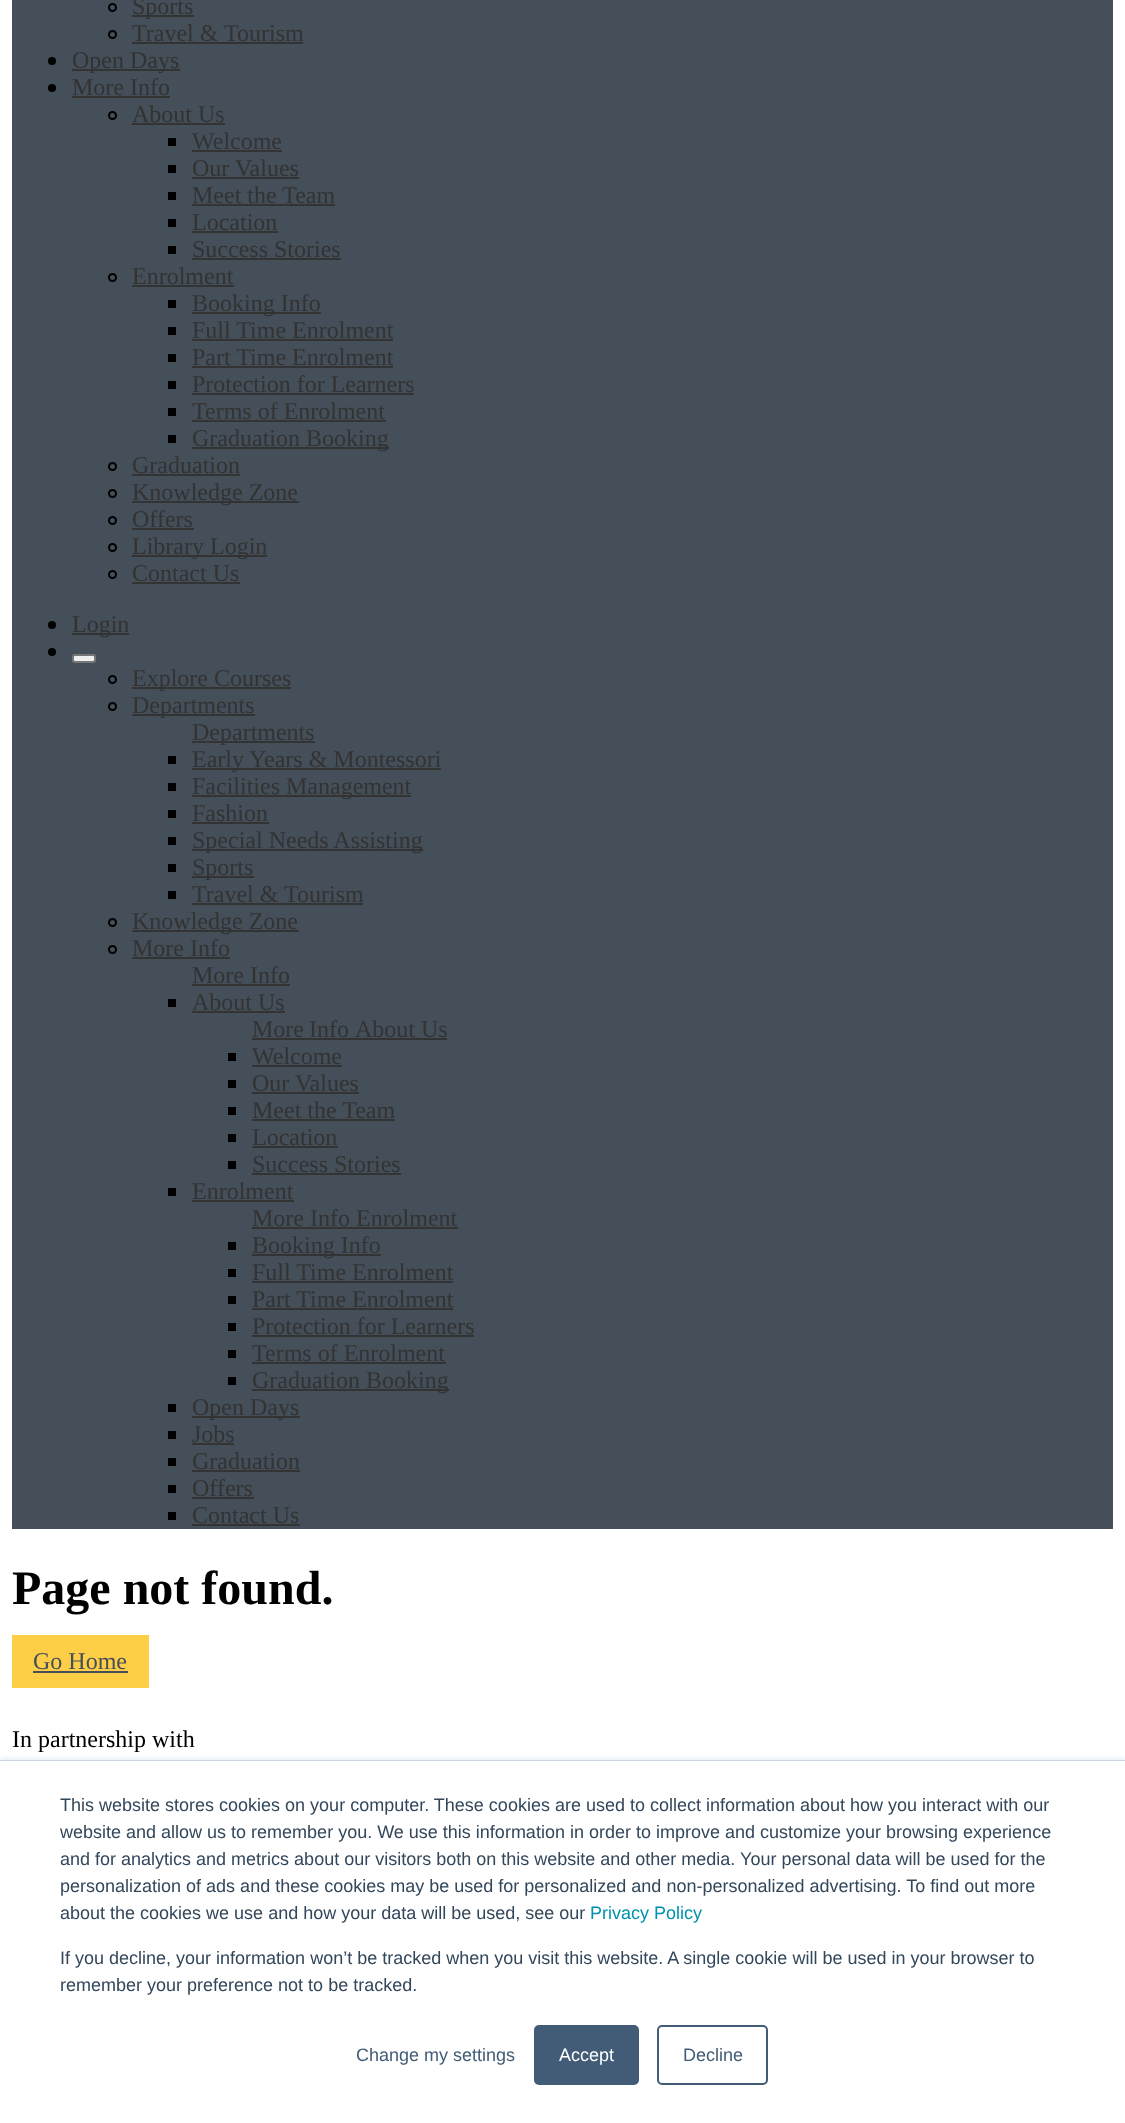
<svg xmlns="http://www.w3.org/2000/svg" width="1125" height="2123">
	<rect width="100%" height="100%" fill="#FFFFFF" />
	<rect x="12" y="0" width="1101" height="1529" fill="#444F59" />
	<circle cx="112.5" cy="7.5" r="3.5" fill="none" stroke="#000000" stroke-width="2" />
	<rect x="132" y="15" width="62" height="2" fill="#333333" />
	<text x="132" y="14" font-family="Liberation Serif" font-size="24" fill="#333333">Sports</text>
	<circle cx="112.5" cy="34.5" r="3.5" fill="none" stroke="#000000" stroke-width="2" />
	<text x="132" y="41" font-family="Liberation Serif" font-size="24" fill="#333333">Travel &amp; Tourism</text>
	<rect x="132" y="42" width="171" height="2" fill="#333333" />
	<circle cx="52" cy="61" r="4" fill="#000000" />
	<rect x="72" y="69" width="108" height="2" fill="#333333" />
	<text x="72" y="68" font-family="Liberation Serif" font-size="24" fill="#333333">Open Days</text>
	<circle cx="52" cy="88" r="4" fill="#000000" />
	<text x="72" y="95" font-family="Liberation Serif" font-size="24" fill="#333333">More Info</text>
	<rect x="72" y="96" width="98" height="2" fill="#333333" />
	<circle cx="112.5" cy="115.5" r="3.5" fill="none" stroke="#000000" stroke-width="2" />
	<text x="132" y="122" font-family="Liberation Serif" font-size="24" fill="#333333">About Us</text>
	<rect x="132" y="123" width="93" height="2" fill="#333333" />
	<rect x="168" y="138" width="8" height="8" fill="#000000" />
	<text x="192" y="149" font-family="Liberation Serif" font-size="24" fill="#333333">Welcome</text>
	<rect x="192" y="150" width="90" height="2" fill="#333333" />
	<rect x="168" y="165" width="8" height="8" fill="#000000" />
	<text x="192" y="176" font-family="Liberation Serif" font-size="24" fill="#333333">Our Values</text>
	<rect x="192" y="177" width="107" height="2" fill="#333333" />
	<rect x="168" y="192" width="8" height="8" fill="#000000" />
	<text x="192" y="203" font-family="Liberation Serif" font-size="24" fill="#333333">Meet the Team</text>
	<rect x="192" y="204" width="143" height="2" fill="#333333" />
	<rect x="168" y="219" width="8" height="8" fill="#000000" />
	<text x="192" y="230" font-family="Liberation Serif" font-size="24" fill="#333333">Location</text>
	<rect x="192" y="231" width="86" height="2" fill="#333333" />
	<rect x="168" y="246" width="8" height="8" fill="#000000" />
	<text x="192" y="257" font-family="Liberation Serif" font-size="24" fill="#333333">Success Stories</text>
	<rect x="192" y="258" width="149" height="2" fill="#333333" />
	<circle cx="112.5" cy="277.5" r="3.5" fill="none" stroke="#000000" stroke-width="2" />
	<text x="132" y="284" font-family="Liberation Serif" font-size="24" fill="#333333">Enrolment</text>
	<rect x="132" y="285" width="102" height="2" fill="#333333" />
	<rect x="168" y="300" width="8" height="8" fill="#000000" />
	<rect x="192" y="312" width="129" height="2" fill="#333333" />
	<text x="192" y="311" font-family="Liberation Serif" font-size="24" fill="#333333">Booking Info</text>
	<rect x="168" y="327" width="8" height="8" fill="#000000" />
	<text x="192" y="338" font-family="Liberation Serif" font-size="24" fill="#333333">Full Time Enrolment</text>
	<rect x="192" y="339" width="201" height="2" fill="#333333" />
	<rect x="168" y="354" width="8" height="8" fill="#000000" />
	<text x="192" y="365" font-family="Liberation Serif" font-size="24" fill="#333333">Part Time Enrolment</text>
	<rect x="192" y="366" width="201" height="2" fill="#333333" />
	<rect x="168" y="381" width="8" height="8" fill="#000000" />
	<text x="192" y="392" font-family="Liberation Serif" font-size="24" fill="#333333">Protection for Learners</text>
	<rect x="192" y="393" width="222" height="2" fill="#333333" />
	<rect x="168" y="408" width="8" height="8" fill="#000000" />
	<text x="192" y="419" font-family="Liberation Serif" font-size="24" fill="#333333">Terms of Enrolment</text>
	<rect x="192" y="420" width="194" height="2" fill="#333333" />
	<rect x="168" y="435" width="8" height="8" fill="#000000" />
	<rect x="192" y="447" width="197" height="2" fill="#333333" />
	<text x="192" y="446" font-family="Liberation Serif" font-size="24" fill="#333333">Graduation Booking</text>
	<circle cx="112.5" cy="466.5" r="3.5" fill="none" stroke="#000000" stroke-width="2" />
	<text x="132" y="473" font-family="Liberation Serif" font-size="24" fill="#333333">Graduation</text>
	<rect x="132" y="474" width="108" height="2" fill="#333333" />
	<circle cx="112.5" cy="493.5" r="3.5" fill="none" stroke="#000000" stroke-width="2" />
	<rect x="132" y="501" width="167" height="2" fill="#333333" />
	<text x="132" y="500" font-family="Liberation Serif" font-size="24" fill="#333333">Knowledge Zone</text>
	<circle cx="112.5" cy="520.5" r="3.5" fill="none" stroke="#000000" stroke-width="2" />
	<text x="132" y="527" font-family="Liberation Serif" font-size="24" fill="#333333">Offers</text>
	<rect x="132" y="528" width="62" height="2" fill="#333333" />
	<circle cx="112.5" cy="547.5" r="3.5" fill="none" stroke="#000000" stroke-width="2" />
	<rect x="132" y="555" width="135" height="2" fill="#333333" />
	<text x="132" y="554" font-family="Liberation Serif" font-size="24" fill="#333333">Library Login</text>
	<circle cx="112.5" cy="574.5" r="3.5" fill="none" stroke="#000000" stroke-width="2" />
	<text x="132" y="581" font-family="Liberation Serif" font-size="24" fill="#333333">Contact Us</text>
	<rect x="132" y="582" width="108" height="2" fill="#333333" />
	<circle cx="52" cy="625" r="4" fill="#000000" />
	<rect x="72" y="633" width="57" height="2" fill="#333333" />
	<text x="72" y="632" font-family="Liberation Serif" font-size="24" fill="#333333">Login</text>
	<circle cx="52" cy="652" r="4" fill="#000000" />
	<rect x="73" y="655" width="22" height="7" rx="2" fill="#EFEFEF" stroke="#767676" stroke-width="2" />
	<circle cx="112.5" cy="679.5" r="3.5" fill="none" stroke="#000000" stroke-width="2" />
	<rect x="132" y="687" width="159" height="2" fill="#333333" />
	<text x="132" y="686" font-family="Liberation Serif" font-size="24" fill="#333333">Explore Courses</text>
	<circle cx="112.5" cy="706.5" r="3.5" fill="none" stroke="#000000" stroke-width="2" />
	<rect x="132" y="714" width="123" height="2" fill="#333333" />
	<text x="132" y="713" font-family="Liberation Serif" font-size="24" fill="#333333">Departments</text>
	<rect x="192" y="741" width="123" height="2" fill="#333333" />
	<text x="192" y="740" font-family="Liberation Serif" font-size="24" fill="#333333">Departments</text>
	<rect x="168" y="756" width="8" height="8" fill="#000000" />
	<rect x="192" y="768" width="249" height="2" fill="#333333" />
	<text x="192" y="767" font-family="Liberation Serif" font-size="24" fill="#333333">Early Years &amp; Montessori</text>
	<rect x="168" y="783" width="8" height="8" fill="#000000" />
	<rect x="192" y="795" width="219" height="2" fill="#333333" />
	<text x="192" y="794" font-family="Liberation Serif" font-size="24" fill="#333333">Facilities Management</text>
	<rect x="168" y="810" width="8" height="8" fill="#000000" />
	<text x="192" y="821" font-family="Liberation Serif" font-size="24" fill="#333333">Fashion</text>
	<rect x="192" y="822" width="77" height="2" fill="#333333" />
	<rect x="168" y="837" width="8" height="8" fill="#000000" />
	<rect x="192" y="849" width="231" height="2" fill="#333333" />
	<text x="192" y="848" font-family="Liberation Serif" font-size="24" fill="#333333">Special Needs Assisting</text>
	<rect x="168" y="864" width="8" height="8" fill="#000000" />
	<rect x="192" y="876" width="62" height="2" fill="#333333" />
	<text x="192" y="875" font-family="Liberation Serif" font-size="24" fill="#333333">Sports</text>
	<rect x="168" y="891" width="8" height="8" fill="#000000" />
	<text x="192" y="902" font-family="Liberation Serif" font-size="24" fill="#333333">Travel &amp; Tourism</text>
	<rect x="192" y="903" width="171" height="2" fill="#333333" />
	<circle cx="112.5" cy="922.5" r="3.5" fill="none" stroke="#000000" stroke-width="2" />
	<rect x="132" y="930" width="167" height="2" fill="#333333" />
	<text x="132" y="929" font-family="Liberation Serif" font-size="24" fill="#333333">Knowledge Zone</text>
	<circle cx="112.5" cy="949.5" r="3.5" fill="none" stroke="#000000" stroke-width="2" />
	<text x="132" y="956" font-family="Liberation Serif" font-size="24" fill="#333333">More Info</text>
	<rect x="132" y="957" width="98" height="2" fill="#333333" />
	<text x="192" y="983" font-family="Liberation Serif" font-size="24" fill="#333333">More Info</text>
	<rect x="192" y="984" width="98" height="2" fill="#333333" />
	<rect x="168" y="999" width="8" height="8" fill="#000000" />
	<text x="192" y="1010" font-family="Liberation Serif" font-size="24" fill="#333333">About Us</text>
	<rect x="192" y="1011" width="93" height="2" fill="#333333" />
	<text x="252" y="1037" word-spacing="-1" font-family="Liberation Serif" font-size="24" fill="#333333">More Info</text>
	<rect x="252" y="1038" width="195" height="2" fill="#333333" />
	<text x="355" y="1037" font-family="Liberation Serif" font-size="24" fill="#333333">About Us</text>
	<rect x="228" y="1053" width="8" height="8" fill="#000000" />
	<text x="252" y="1064" font-family="Liberation Serif" font-size="24" fill="#333333">Welcome</text>
	<rect x="252" y="1065" width="90" height="2" fill="#333333" />
	<rect x="228" y="1080" width="8" height="8" fill="#000000" />
	<text x="252" y="1091" font-family="Liberation Serif" font-size="24" fill="#333333">Our Values</text>
	<rect x="252" y="1092" width="107" height="2" fill="#333333" />
	<rect x="228" y="1107" width="8" height="8" fill="#000000" />
	<text x="252" y="1118" font-family="Liberation Serif" font-size="24" fill="#333333">Meet the Team</text>
	<rect x="252" y="1119" width="143" height="2" fill="#333333" />
	<rect x="228" y="1134" width="8" height="8" fill="#000000" />
	<text x="252" y="1145" font-family="Liberation Serif" font-size="24" fill="#333333">Location</text>
	<rect x="252" y="1146" width="86" height="2" fill="#333333" />
	<rect x="228" y="1161" width="8" height="8" fill="#000000" />
	<text x="252" y="1172" font-family="Liberation Serif" font-size="24" fill="#333333">Success Stories</text>
	<rect x="252" y="1173" width="149" height="2" fill="#333333" />
	<rect x="168" y="1188" width="8" height="8" fill="#000000" />
	<text x="192" y="1199" font-family="Liberation Serif" font-size="24" fill="#333333">Enrolment</text>
	<rect x="192" y="1200" width="102" height="2" fill="#333333" />
	<text x="252" y="1226" font-family="Liberation Serif" font-size="24" fill="#333333">More Info Enrolment</text>
	<rect x="252" y="1227" width="206" height="2" fill="#333333" />
	<rect x="228" y="1242" width="8" height="8" fill="#000000" />
	<rect x="252" y="1254" width="129" height="2" fill="#333333" />
	<text x="252" y="1253" font-family="Liberation Serif" font-size="24" fill="#333333">Booking Info</text>
	<rect x="228" y="1269" width="8" height="8" fill="#000000" />
	<text x="252" y="1280" font-family="Liberation Serif" font-size="24" fill="#333333">Full Time Enrolment</text>
	<rect x="252" y="1281" width="201" height="2" fill="#333333" />
	<rect x="228" y="1296" width="8" height="8" fill="#000000" />
	<text x="252" y="1307" font-family="Liberation Serif" font-size="24" fill="#333333">Part Time Enrolment</text>
	<rect x="252" y="1308" width="201" height="2" fill="#333333" />
	<rect x="228" y="1323" width="8" height="8" fill="#000000" />
	<text x="252" y="1334" font-family="Liberation Serif" font-size="24" fill="#333333">Protection for Learners</text>
	<rect x="252" y="1335" width="222" height="2" fill="#333333" />
	<rect x="228" y="1350" width="8" height="8" fill="#000000" />
	<text x="252" y="1361" font-family="Liberation Serif" font-size="24" fill="#333333">Terms of Enrolment</text>
	<rect x="252" y="1362" width="194" height="2" fill="#333333" />
	<rect x="228" y="1377" width="8" height="8" fill="#000000" />
	<rect x="252" y="1389" width="197" height="2" fill="#333333" />
	<text x="252" y="1388" font-family="Liberation Serif" font-size="24" fill="#333333">Graduation Booking</text>
	<rect x="168" y="1404" width="8" height="8" fill="#000000" />
	<rect x="192" y="1416" width="108" height="2" fill="#333333" />
	<text x="192" y="1415" font-family="Liberation Serif" font-size="24" fill="#333333">Open Days</text>
	<rect x="168" y="1431" width="8" height="8" fill="#000000" />
	<text x="192" y="1442" font-family="Liberation Serif" font-size="24" fill="#333333">Jobs</text>
	<rect x="192" y="1443" width="42" height="2" fill="#333333" />
	<rect x="168" y="1458" width="8" height="8" fill="#000000" />
	<text x="192" y="1469" font-family="Liberation Serif" font-size="24" fill="#333333">Graduation</text>
	<rect x="192" y="1470" width="108" height="2" fill="#333333" />
	<rect x="168" y="1485" width="8" height="8" fill="#000000" />
	<text x="192" y="1496" font-family="Liberation Serif" font-size="24" fill="#333333">Offers</text>
	<rect x="192" y="1497" width="62" height="2" fill="#333333" />
	<rect x="168" y="1512" width="8" height="8" fill="#000000" />
	<text x="192" y="1523" font-family="Liberation Serif" font-size="24" fill="#333333">Contact Us</text>
	<rect x="192" y="1524" width="108" height="2" fill="#333333" />
	<text x="12" y="1604" font-family="Liberation Serif" font-size="48" font-weight="700" fill="#000000">Page not found.</text>
	<rect x="12" y="1635" width="137" height="53" fill="#FFCE47" />
	<text x="33" y="1669" font-family="Liberation Serif" font-size="24" fill="#444F59">Go Home</text>
	<rect x="33" y="1671" width="95" height="2" fill="#444F59" />
	<text x="12" y="1747" font-family="Liberation Serif" font-size="24" fill="#000000">In partnership with</text>
	<rect x="0" y="1758" width="1125" height="365" fill="#EAF0F6" filter="blur(2px)" />
	<rect x="0" y="1760" width="1125" height="1" fill="#CBD6E2" />
	<rect x="0" y="1761" width="1125" height="362" fill="#FFFFFF" />
	<g font-family="Liberation Sans" font-size="18" fill="#33475B">
		<text x="60" y="1811">This website stores cookies on your computer. These cookies are used to collect information about how you interact with our</text>
		<text x="60" y="1838">website and allow us to remember you. We use this information in order to improve and customize your browsing experience</text>
		<text x="60" y="1865">and for analytics and metrics about our visitors both on this website and other media. Your personal data will be used for the</text>
		<text x="60" y="1892">personalization of ads and these cookies may be used for personalized and non-personalized advertising. To find out more</text>
		<text x="60" y="1919">about the cookies we use and how your data will be used, see our</text>
	</g>
	<text x="590" y="1919" font-family="Liberation Sans" font-size="18" fill="#0091AE">Privacy Policy</text>
	<g font-family="Liberation Sans" font-size="18" fill="#33475B">
		<text x="60" y="1964">If you decline, your information won’t be tracked when you visit this website. A single cookie will be used in your browser to</text>
		<text x="60" y="1991">remember your preference not to be tracked.</text>
	</g>
	<text x="356" y="2061" font-family="Liberation Sans" font-size="18" fill="#425B76">Change my settings</text>
	<rect x="535" y="2026" width="103" height="58" rx="4" fill="#425B76" stroke="#425B76" stroke-width="2" />
	<text x="559" y="2061" font-family="Liberation Sans" font-size="18" fill="#FFFFFF">Accept</text>
	<rect x="658" y="2026" width="109" height="58" rx="4" fill="none" stroke="#425B76" stroke-width="2" />
	<text x="683" y="2061" font-family="Liberation Sans" font-size="18" fill="#425B76">Decline</text>
</svg>
